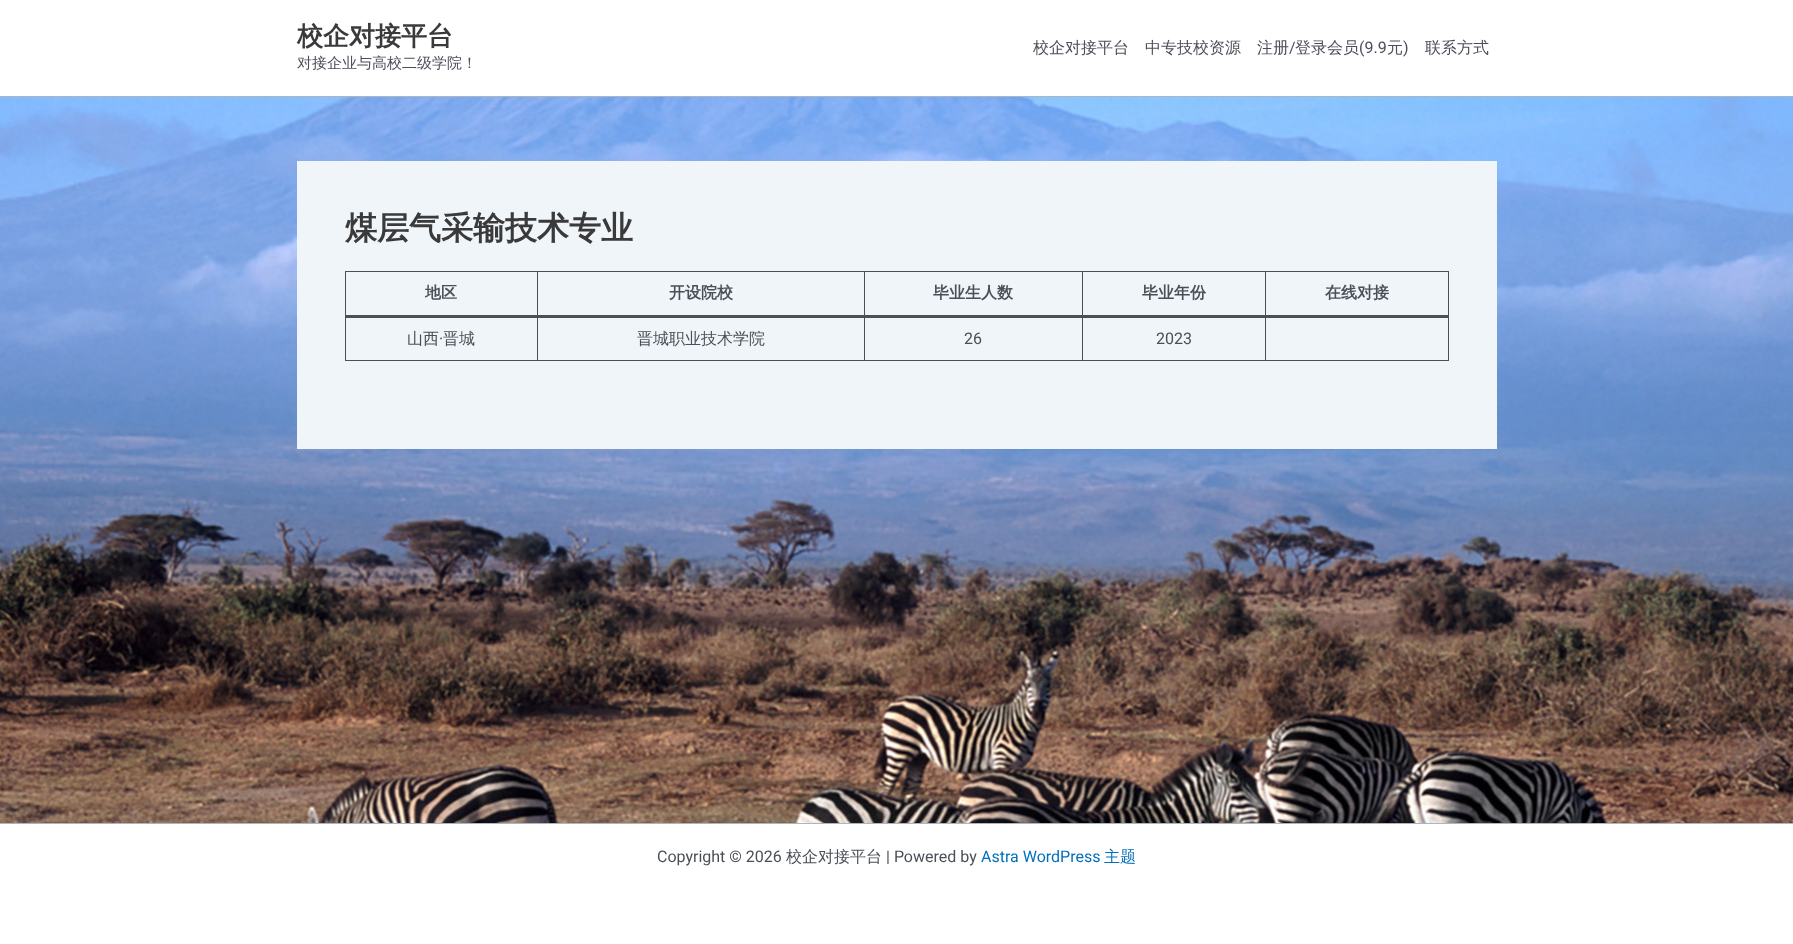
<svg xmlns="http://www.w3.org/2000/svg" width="1793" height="944">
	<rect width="100%" height="100%" fill="#FFFFFF" />
	<image x="0" y="97" width="1793" height="726" href="assets/img1.png" />
	<rect x="0" y="96" width="1793" height="1" fill="#ADB6BE" />
	<text x="297" y="45" font-family="WenQuanYi Zen Hei" font-size="26" font-weight="700" fill="#3A3A3A">校企对接平台</text>
	<text x="297" y="68" font-family="WenQuanYi Zen Hei" font-size="15" font-weight="500" fill="#4B4F58">对接企业与高校二级学院！</text>
	<g font-family="WenQuanYi Zen Hei" font-size="16" font-weight="500" fill="#4B4F58">
		<text x="1033" y="53">校企对接平台</text>
		<text x="1145" y="53">中专技校资源</text>
		<text x="1257" y="53">注册</text>
	</g>
	<text x="1289" y="53" font-family="Roboto" font-size="16" fill="#4B4F58">/</text>
	<text x="1295" y="53" font-family="WenQuanYi Zen Hei" font-size="16" font-weight="500" fill="#4B4F58">登录会员</text>
	<text x="1359" y="53" font-family="Roboto" font-size="16" fill="#4B4F58">(9.9</text>
	<text x="1387" y="53" font-family="WenQuanYi Zen Hei" font-size="16" font-weight="500" fill="#4B4F58">元</text>
	<text x="1403" y="53" font-family="Roboto" font-size="16" fill="#4B4F58">)</text>
	<text x="1425" y="53" font-family="WenQuanYi Zen Hei" font-size="16" font-weight="500" fill="#4B4F58">联系方式</text>
	<rect x="297" y="161" width="1200" height="288" fill="#F0F5FA" />
	<text x="345" y="239" font-family="WenQuanYi Zen Hei" font-size="32" font-weight="700" fill="#3A3A3A">煤层气采输技术专业</text>
	<rect x="1265" y="271" width="184" height="1" fill="#4B4F58" />
	<rect x="1448" y="316" width="1" height="45" fill="#4B4F58" />
	<rect x="1265" y="360" width="184" height="1" fill="#4B4F58" />
	<rect x="1265" y="316" width="1" height="45" fill="#4B4F58" />
	<rect x="1265" y="271" width="1" height="46" fill="#4B4F58" />
	<rect x="1082" y="271" width="184" height="1" fill="#4B4F58" />
	<rect x="1082" y="360" width="184" height="1" fill="#4B4F58" />
	<rect x="1082" y="316" width="1" height="45" fill="#4B4F58" />
	<rect x="1082" y="271" width="1" height="46" fill="#4B4F58" />
	<rect x="864" y="271" width="219" height="1" fill="#4B4F58" />
	<rect x="864" y="360" width="219" height="1" fill="#4B4F58" />
	<rect x="864" y="316" width="1" height="45" fill="#4B4F58" />
	<rect x="864" y="271" width="1" height="46" fill="#4B4F58" />
	<rect x="537" y="271" width="328" height="1" fill="#4B4F58" />
	<rect x="537" y="360" width="328" height="1" fill="#4B4F58" />
	<rect x="537" y="316" width="1" height="45" fill="#4B4F58" />
	<rect x="537" y="271" width="1" height="46" fill="#4B4F58" />
	<rect x="345" y="271" width="193" height="1" fill="#4B4F58" />
	<rect x="345" y="360" width="193" height="1" fill="#4B4F58" />
	<rect x="345" y="316" width="1" height="45" fill="#4B4F58" />
	<rect x="345" y="271" width="1" height="46" fill="#4B4F58" />
	<rect x="1448" y="271" width="1" height="46" fill="#4B4F58" />
	<rect x="345" y="315" width="1104" height="3" fill="#4B4F58" />
	<g font-family="WenQuanYi Zen Hei" font-size="16" font-weight="700" fill="#4B4F58">
		<text x="425" y="298">地区</text>
		<text x="669" y="298">开设院校</text>
		<text x="933" y="298">毕业生人数</text>
		<text x="1142" y="298">毕业年份</text>
		<text x="1325" y="298">在线对接</text>
	</g>
	<text x="407" y="344" font-family="WenQuanYi Zen Hei" font-size="16" font-weight="500" fill="#4B4F58">山西</text>
	<text x="439" y="344" font-family="Roboto" font-size="16" fill="#4B4F58">·</text>
	<g font-family="WenQuanYi Zen Hei" font-size="16" font-weight="500" fill="#4B4F58">
		<text x="443" y="344">晋城</text>
		<text x="637" y="344">晋城职业技术学院</text>
	</g>
	<g font-family="Roboto" font-size="16" fill="#4B4F58">
		<text x="964" y="344">26</text>
		<text x="1156" y="344">2023</text>
	</g>
	<rect x="0" y="823" width="1793" height="1" fill="#ADB6BE" />
	<text x="657" y="862" font-family="Roboto" font-size="16" fill="#4B4F58">Copyright © 2026</text>
	<text x="786" y="862" font-family="WenQuanYi Zen Hei" font-size="16" font-weight="500" fill="#4B4F58">校企对接平台</text>
	<text x="886" y="862" font-family="Roboto" font-size="16" fill="#4B4F58">| Powered by</text>
	<text x="981" y="862" font-family="Roboto" font-size="16" fill="#0170B9">Astra WordPress</text>
	<text x="1104" y="862" font-family="WenQuanYi Zen Hei" font-size="16" font-weight="500" fill="#0170B9">主题</text>
</svg>
